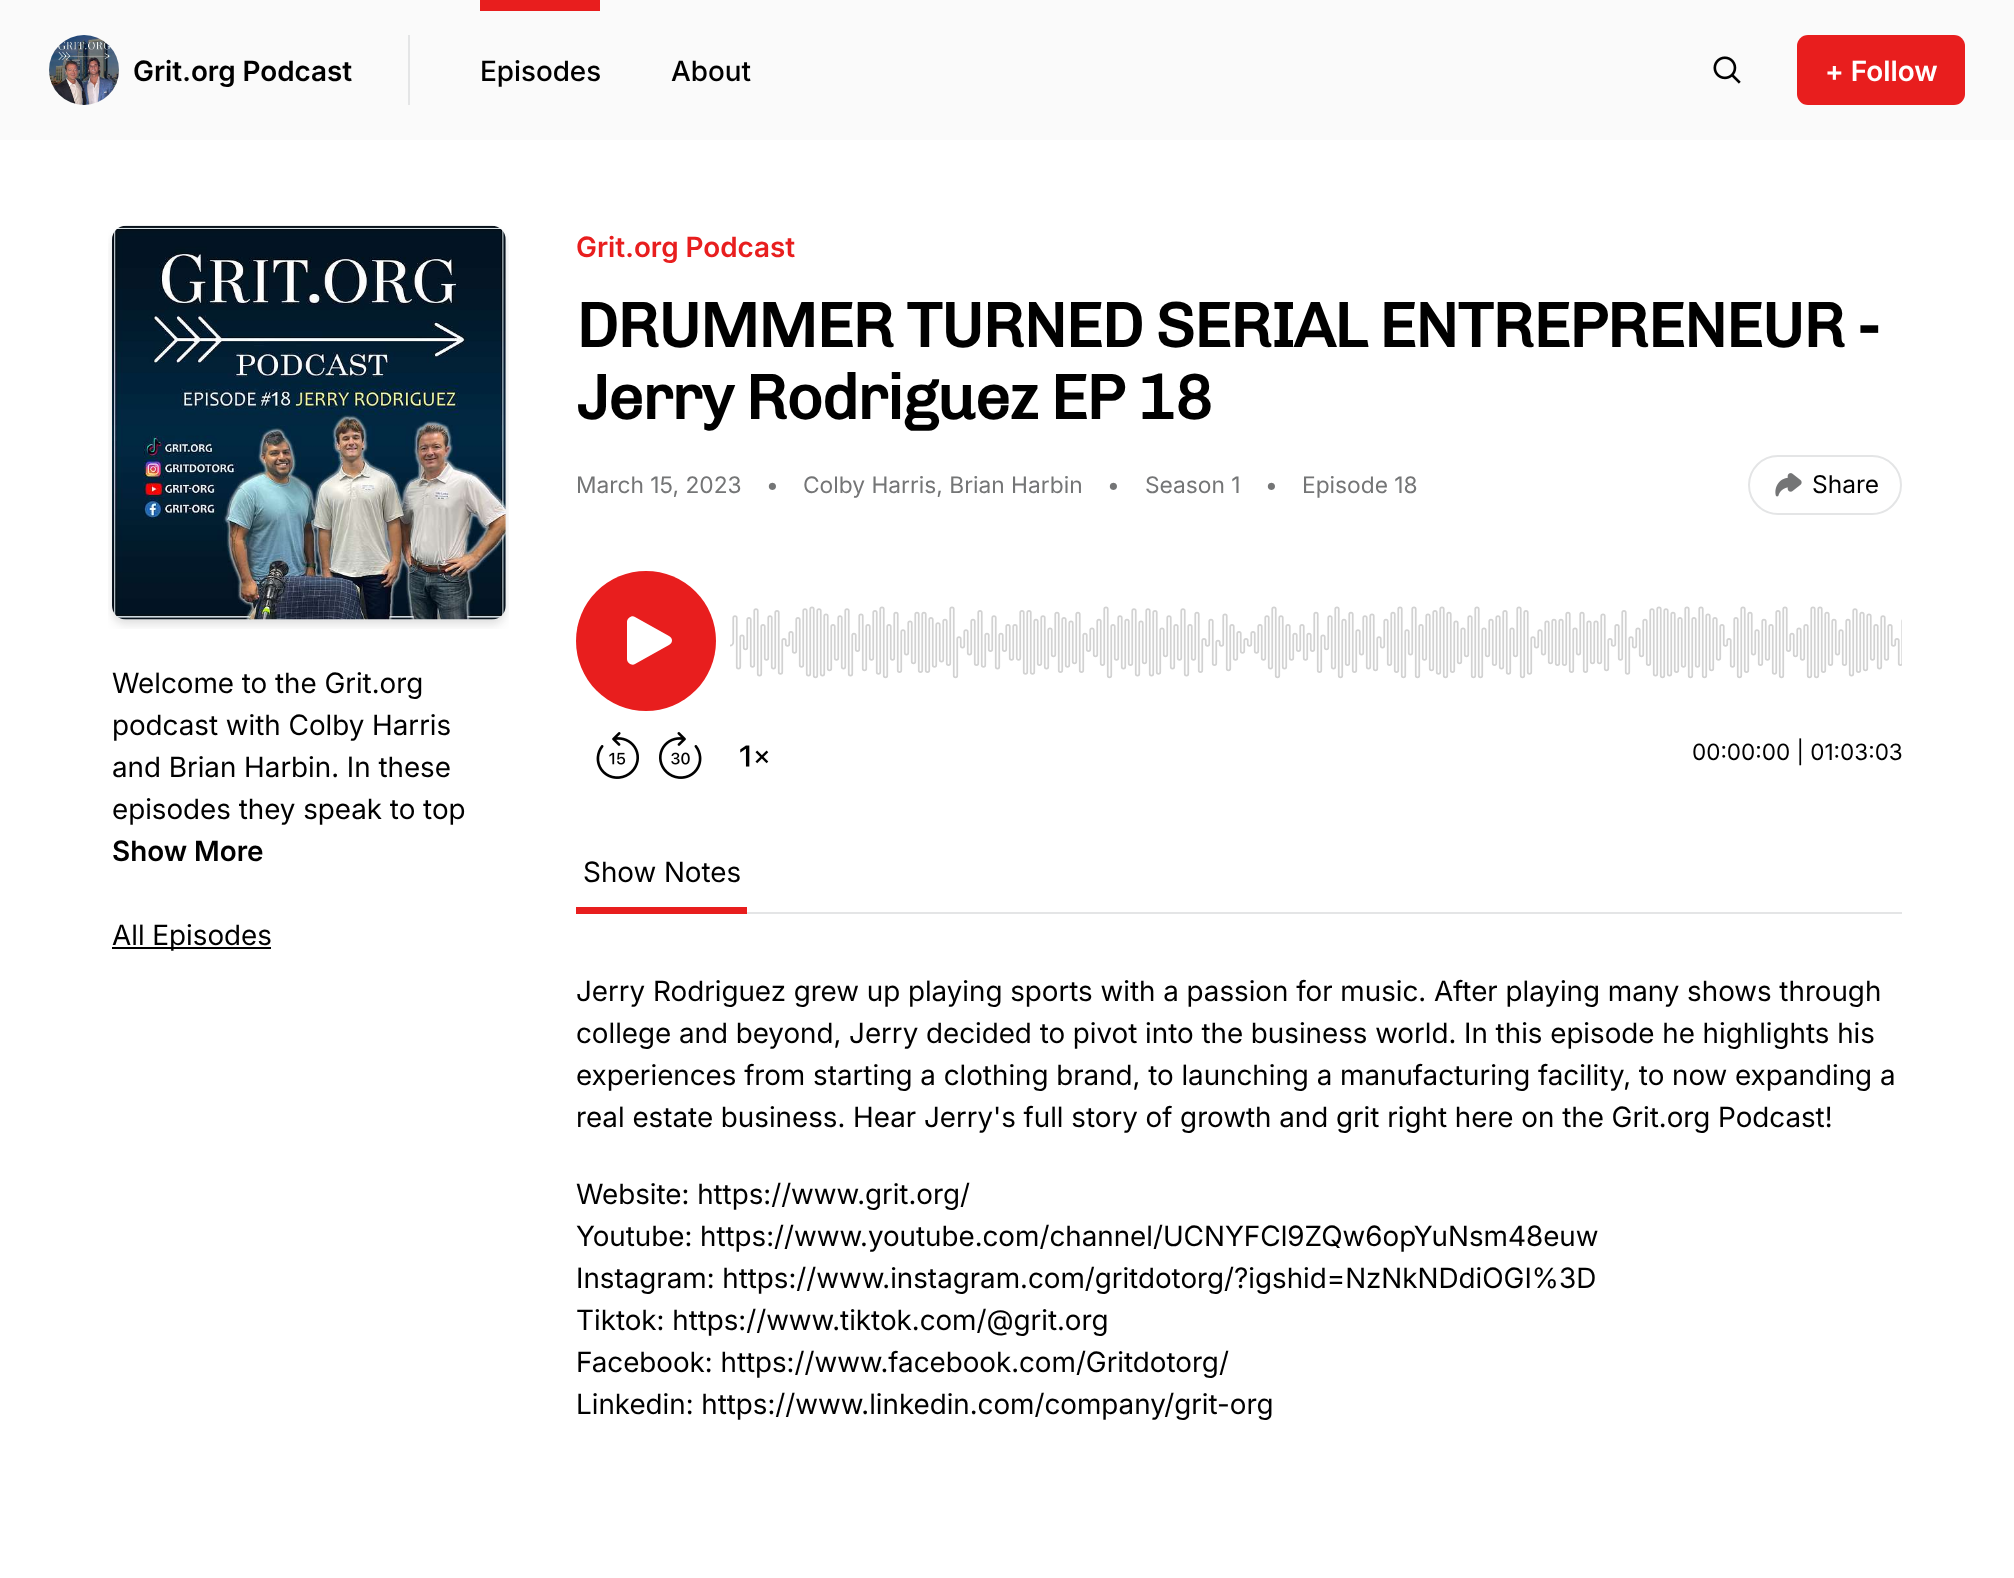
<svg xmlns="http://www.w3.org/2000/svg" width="2014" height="1578">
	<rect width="100%" height="100%" fill="#FFFFFF" />
	<rect x="0" y="0" width="2014" height="140" fill="#FAFAFA" />
	<rect x="408" y="35" width="2" height="70" fill="#E4E5E6" />
	<image x="49" y="35" width="70" height="70" href="assets/img1.png" />
	<text x="133" y="81" font-family="Inter" font-size="28" font-weight="600" fill="#000000">Grit.org Podcast</text>
	<rect x="480" y="0" width="120" height="11" fill="#E81E1E" />
	<g font-family="Inter" font-size="28" font-weight="500" fill="#000000">
		<text x="480" y="81">Episodes</text>
		<text x="671" y="81">About</text>
	</g>
	<image x="1713" y="56" width="28" height="28" href="assets/img2.png" />
	<rect x="1797" y="35" width="168" height="70" rx="11" fill="#E81E1E" />
	<text x="1825" y="81" font-family="Inter" font-size="28" font-weight="600" fill="#FFFFFF">+ Follow</text>
	<image x="108" y="225" width="401" height="404" href="assets/img3.png" />
	<g font-family="Inter" font-size="28" fill="#000000">
		<text x="112" y="693">Welcome to the Grit.org</text>
		<text x="112" y="735">podcast with Colby Harris</text>
		<text x="112" y="777">and Brian Harbin. In these</text>
		<text x="112" y="819">episodes they speak to top</text>
	</g>
	<text x="112" y="861" font-family="Inter" font-size="28" font-weight="600" fill="#000000">Show More</text>
	<rect x="112" y="947" width="159" height="2" fill="#000000" />
	<text x="112" y="945" font-family="Inter" font-size="28" fill="#000000">All Episodes</text>
	<text x="576" y="257" font-family="Inter" font-size="28" font-weight="600" fill="#E81E1E">Grit.org Podcast</text>
	<g font-family="Chivo" font-size="63" font-weight="700" letter-spacing="-1.55" fill="#000000">
		<text x="576" y="347">DRUMMER TURNED SERIAL ENTREPRENEUR -</text>
		<text x="576" y="419">Jerry Rodriguez EP 18</text>
	</g>
	<g font-family="'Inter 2'" font-size="22.75" fill="#747576">
		<text x="576" y="493">March 15, 2023</text>
		<text x="766" y="493">•</text>
		<text x="803" y="493">Colby Harris, Brian Harbin</text>
		<text x="1107" y="493">•</text>
		<text x="1145" y="493">Season 1</text>
		<text x="1265" y="493">•</text>
		<text x="1302" y="493">Episode 18</text>
	</g>
	<rect x="1749" y="456" width="152" height="58" rx="29" fill="none" stroke="#E4E5E6" stroke-width="2" />
	<image x="1775" y="473" width="27" height="24" href="assets/img4.png" />
	<text x="1812" y="493" font-family="'Inter 2'" font-size="24.5" fill="#000000">Share</text>
	<image x="596" y="732" width="43" height="47" href="assets/img5.png" />
	<image x="659" y="732" width="43" height="47" href="assets/img6.png" />
	<image x="740" y="745" width="29" height="22" href="assets/img7.png" />
	<circle cx="646" cy="641" r="70" fill="#E81E1E" />
	<path d="M627 622C627 618 632 615 635 617L669 636C673 638 673 643 669 645L635 664C632 666 627 663 627 659Z" fill="#FFFFFF" fill-rule="evenodd" />
	<image x="730" y="606" width="1172" height="73" href="assets/img8.png" />
	<text x="1692" y="760" font-family="'Inter 2'" font-size="22.5" fill="#000000">00:00:00 | 01:03:03</text>
	<rect x="747" y="912" width="1155" height="2" fill="#E4E5E6" />
	<rect x="576" y="907" width="171" height="7" fill="#E81E1E" />
	<g font-family="Inter" font-size="28" fill="#000000">
		<text x="583" y="882">Show Notes</text>
		<text x="576" y="1001">Jerry Rodriguez grew up playing sports with a passion for music. After playing many shows through</text>
		<text x="576" y="1043">college and beyond, Jerry decided to pivot into the business world. In this episode he highlights his</text>
		<text x="576" y="1085">experiences from starting a clothing brand, to launching a manufacturing facility, to now expanding a</text>
		<text x="576" y="1127">real estate business. Hear Jerry's full story of growth and grit right here on the Grit.org Podcast!</text>
		<text x="576" y="1204">Website: https://www.grit.org/</text>
		<text x="576" y="1246">Youtube: https://www.youtube.com/channel/UCNYFCl9ZQw6opYuNsm48euw</text>
		<text x="576" y="1288">Instagram: https://www.instagram.com/gritdotorg/?igshid=NzNkNDdiOGI%3D</text>
		<text x="576" y="1330">Tiktok: https://www.tiktok.com/@grit.org</text>
		<text x="576" y="1372">Facebook: https://www.facebook.com/Gritdotorg/</text>
		<text x="576" y="1414">Linkedin: https://www.linkedin.com/company/grit-org</text>
	</g>
</svg>
